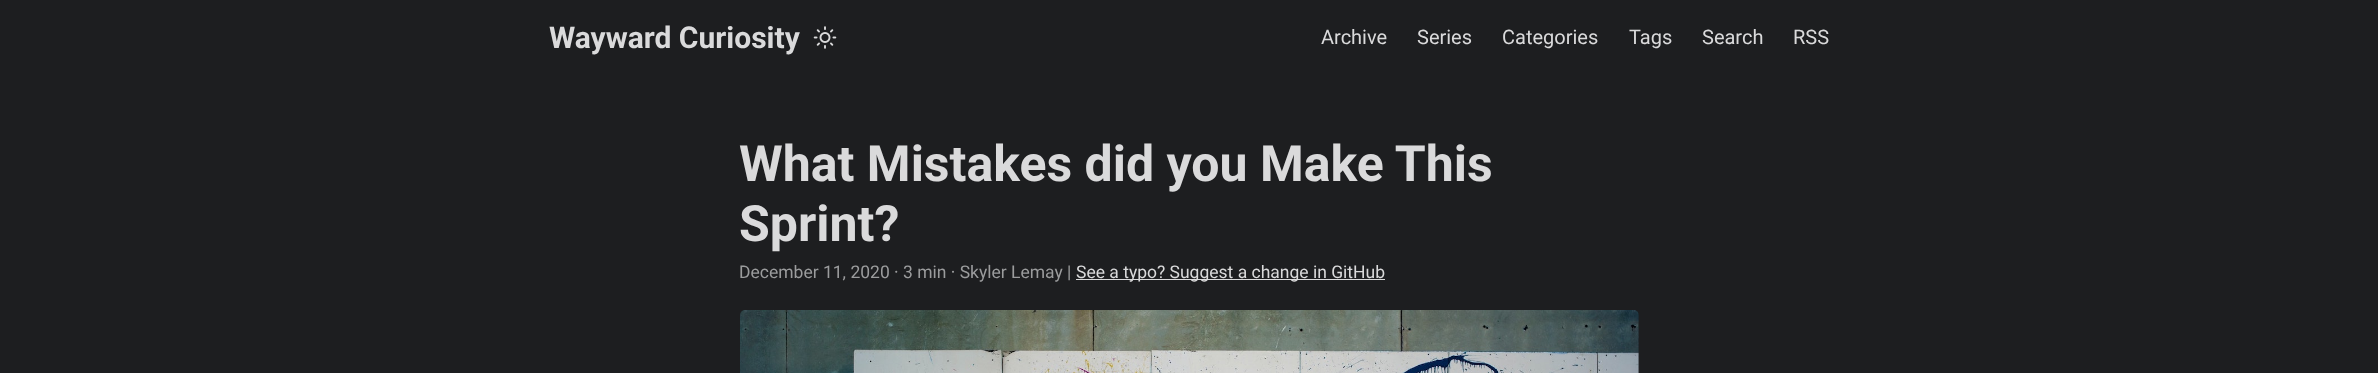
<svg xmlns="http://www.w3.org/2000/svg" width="2378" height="373">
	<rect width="100%" height="100%" fill="#1D1E20" />
	<text x="549" y="48" font-family="Roboto" font-size="30" font-weight="700" fill="#DADADB">Wayward Curiosity</text>
	<image x="813" y="26" width="24" height="23" href="assets/img1.png" />
	<g font-family="Roboto" font-size="20" fill="#DADADB">
		<text x="1321" y="44">Archive</text>
		<text x="1417" y="44">Series</text>
		<text x="1502" y="44">Categories</text>
		<text x="1629" y="44">Tags</text>
		<text x="1702" y="44">Search</text>
		<text x="1793" y="44">RSS</text>
	</g>
	<g font-family="Roboto" font-size="50" font-weight="700" fill="#DADADB">
		<text x="739" y="181">What Mistakes did you Make This</text>
		<text x="739" y="241">Sprint?</text>
	</g>
	<text x="739" y="278" font-family="Roboto" font-size="17.5" fill="#9B9C9D">December 11, 2020 · 3 min · Skyler Lemay |</text>
	<rect x="1076" y="279" width="309" height="1" fill="#DADADB" />
	<text x="1076" y="278" font-family="Roboto" font-size="17.5" fill="#DADADB">See a typo? Suggest a change in GitHub</text>
	<image x="740" y="310" width="899" height="63" href="assets/img2.png" />
</svg>
